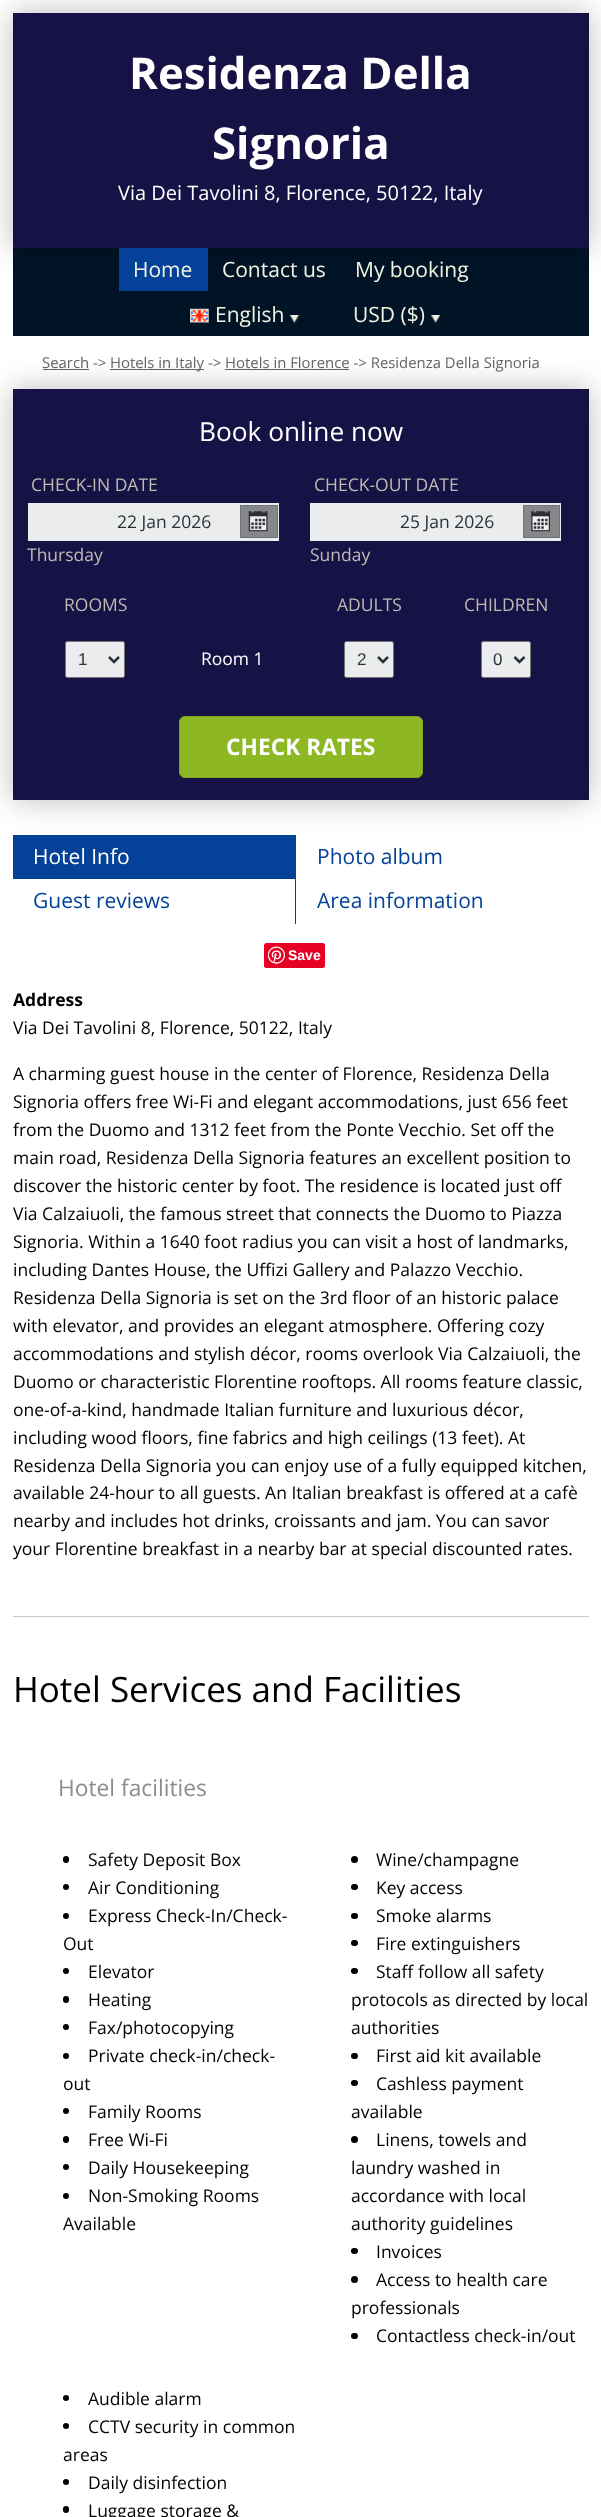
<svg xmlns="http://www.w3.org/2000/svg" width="601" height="2517">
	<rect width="100%" height="100%" fill="#FFFFFF" />
	<rect x="13" y="248" width="576" height="88" fill="#011426" />
	<rect x="13" y="13" width="576" height="235" fill="#000000" fill-opacity="0.27" filter="blur(15px)" />
	<rect x="13" y="13" width="576" height="235" fill="#161245" />
	<g font-family="Open Sans" font-size="43.75" font-weight="700" fill="#FFFFFF">
		<text x="129" y="89">Residenza Della</text>
		<text x="212" y="159">Signoria</text>
	</g>
	<text x="118" y="200" font-family="Open Sans" font-size="20" fill="#FFFFFF">Via Dei Tavolini 8, Florence, 50122, Italy</text>
	<rect x="119" y="248" width="89" height="43" fill="#044299" />
	<g font-family="Open Sans" font-size="21" fill="#F2F2E3">
		<text x="133" y="277">Home</text>
		<text x="222" y="277">Contact us</text>
		<text x="355" y="277">My booking</text>
	</g>
	<image x="190" y="308" width="19" height="15" href="assets/img1.png" />
	<text x="215" y="322" font-family="Open Sans" font-size="21" fill="#F2F2E3">English</text>
	<image x="290" y="315" width="9" height="8" href="assets/img2.png" />
	<text x="353" y="322" font-family="Open Sans" font-size="21" fill="#F2F2E3">USD ($)</text>
	<image x="431" y="315" width="9" height="8" href="assets/img3.png" />
	<text x="42" y="368" font-family="Open Sans" font-size="14.9" fill="#666666">Search -&gt;</text>
	<rect x="43" y="369" width="46" height="1" fill="#666666" />
	<rect x="110" y="369" width="94" height="1" fill="#666666" />
	<text x="110" y="368" font-family="Open Sans" font-size="14.9" fill="#666666">Hotels in Italy -&gt; Hotels in Florence -&gt; Residenza Della Signoria</text>
	<rect x="225" y="369" width="124" height="1" fill="#666666" />
	<rect x="13" y="835" width="283" height="44" fill="#044299" />
	<rect x="13" y="389" width="576" height="411" fill="#000000" fill-opacity="0.27" filter="blur(15px)" />
	<rect x="13" y="389" width="576" height="411" fill="#161245" />
	<text x="199" y="441" font-family="Open Sans" font-size="26.25" fill="#FFFFFF">Book online now</text>
	<text x="31" y="491" font-family="Open Sans" font-size="17.5" fill="#BEBCB2">CHECK-IN DATE</text>
	<rect x="28" y="503" width="251" height="38" fill="#EBECED" />
	<rect x="241" y="506" width="36" height="31" fill="#868788" />
	<image x="248" y="511" width="20" height="21" href="assets/img4.png" />
	<rect x="240.5" y="505.5" width="37" height="32" fill="none" stroke="#6E747A" />
	<text x="117" y="528" font-family="Open Sans" font-size="17.5" fill="#2A3235">22 Jan 2026</text>
	<g font-family="Open Sans" font-size="17.5" fill="#BEBCB2">
		<text x="27" y="561">Thursday</text>
		<text x="314" y="491">CHECK-OUT DATE</text>
	</g>
	<rect x="310" y="503" width="251" height="38" fill="#EBECED" />
	<rect x="524" y="506" width="35" height="31" fill="#868788" />
	<image x="531" y="511" width="19" height="21" href="assets/img5.png" />
	<rect x="523.5" y="505.5" width="36" height="32" fill="none" stroke="#6E747A" />
	<text x="400" y="528" font-family="Open Sans" font-size="17.5" fill="#2A3235">25 Jan 2026</text>
	<g font-family="Open Sans" font-size="17.5" fill="#BEBCB2">
		<text x="310" y="561">Sunday</text>
		<text x="64" y="611">ROOMS</text>
		<text x="337" y="611">ADULTS</text>
		<text x="464" y="611">CHILDREN</text>
	</g>
	<rect x="65.5" y="641.5" width="59" height="36" rx="2" fill="#EBECED" stroke="#767676" />
	<path d="M109 657L114 662L119 657" fill="none" stroke="#2A3235" stroke-width="2.5" />
	<text x="78" y="665" font-family="Liberation Sans" font-size="17" fill="#2A3235">1</text>
	<text x="201" y="665" font-family="Open Sans" font-size="17.5" fill="#FFFFFF">Room 1</text>
	<rect x="344.5" y="641.5" width="49" height="36" rx="2" fill="#EBECED" stroke="#767676" />
	<path d="M378 657L383 662L388 657" fill="none" stroke="#2A3235" stroke-width="2.5" />
	<text x="357" y="665" font-family="Liberation Sans" font-size="17" fill="#2A3235">2</text>
	<rect x="481.5" y="641.5" width="49" height="36" rx="2" fill="#EBECED" stroke="#767676" />
	<path d="M514.5 657L519.5 662L524.5 657" fill="none" stroke="#2A3235" stroke-width="2.5" />
	<text x="493" y="665" font-family="Liberation Sans" font-size="17" fill="#2A3235">0</text>
	<rect x="179.5" y="716.5" width="243" height="61" rx="5.5" fill="#8EB724" stroke="#80A51E" />
	<text x="226" y="755" font-family="Open Sans" font-size="22.75" font-weight="700" fill="#FFFFFF">CHECK RATES</text>
	<text x="33" y="864" font-family="Open Sans" font-size="21" fill="#FFFFFF">Hotel Info</text>
	<g font-family="Open Sans" font-size="21" fill="#044299">
		<text x="317" y="864">Photo album</text>
		<text x="33" y="908">Guest reviews</text>
	</g>
	<rect x="295" y="879" width="1" height="45" fill="#044299" />
	<text x="317" y="908" font-family="Open Sans" font-size="21" fill="#044299">Area information</text>
	<rect x="264" y="943" width="61" height="25" rx="2.5" fill="#E60023" />
	<image x="268" y="946" width="17" height="18" href="assets/img6.png" />
	<text x="288" y="960" font-family="Liberation Sans" font-size="14" font-weight="700" fill="#FFFFFF">Save</text>
	<text x="13" y="1006" font-family="Open Sans" font-size="17.5" font-weight="700" fill="#000000">Address</text>
	<g font-family="Open Sans" font-size="17.5" fill="#000000">
		<text x="13" y="1034">Via Dei Tavolini 8, Florence, 50122, Italy</text>
		<text x="13" y="1080">A charming guest house in the center of Florence, Residenza Della</text>
		<text x="13" y="1108">Signoria offers free Wi-Fi and elegant accommodations, just 656 feet</text>
		<text x="13" y="1136">from the Duomo and 1312 feet from the Ponte Vecchio. Set off the</text>
		<text x="13" y="1164">main road, Residenza Della Signoria features an excellent position to</text>
		<text x="13" y="1192">discover the historic center by foot. The residence is located just off</text>
		<text x="13" y="1220">Via Calzaiuoli, the famous street that connects the Duomo to Piazza</text>
		<text x="13" y="1248">Signoria. Within a 1640 foot radius you can visit a host of landmarks,</text>
		<text x="13" y="1276">including Dantes House, the Uffizi Gallery and Palazzo Vecchio.</text>
		<text x="13" y="1304">Residenza Della Signoria is set on the 3rd floor of an historic palace</text>
		<text x="13" y="1332">with elevator, and provides an elegant atmosphere. Offering cozy</text>
		<text x="13" y="1360">accommodations and stylish décor, rooms overlook Via Calzaiuoli, the</text>
		<text x="13" y="1388">Duomo or characteristic Florentine rooftops. All rooms feature classic,</text>
		<text x="13" y="1416">one-of-a-kind, handmade Italian furniture and luxurious décor,</text>
		<text x="13" y="1444">including wood floors, fine fabrics and high ceilings (13 feet). At</text>
		<text x="13" y="1472">Residenza Della Signoria you can enjoy use of a fully equipped kitchen,</text>
		<text x="13" y="1499">available 24-hour to all guests. An Italian breakfast is offered at a cafè</text>
		<text x="13" y="1527">nearby and includes hot drinks, croissants and jam. You can savor</text>
		<text x="13" y="1555">your Florentine breakfast in a nearby bar at special discounted rates.</text>
	</g>
	<rect x="13" y="1616" width="576" height="1" fill="#CDC7C1" />
	<text x="13" y="1702" font-family="Open Sans" font-size="35" fill="#000000">Hotel Services and Facilities</text>
	<text x="58" y="1796" font-family="Open Sans" font-size="22.75" fill="#8E8C86">Hotel facilities</text>
	<rect x="63" y="1856" width="6" height="7" rx="3" fill="#000000" />
	<text x="88" y="1866" font-family="Open Sans" font-size="17.5" fill="#000000">Safety Deposit Box</text>
	<circle cx="66" cy="1887" r="3" fill="#000000" />
	<text x="88" y="1894" font-family="Open Sans" font-size="17.5" fill="#000000">Air Conditioning</text>
	<circle cx="66" cy="1916" r="3" fill="#000000" />
	<g font-family="Open Sans" font-size="17.5" fill="#000000">
		<text x="88" y="1922">Express Check-In/Check-</text>
		<text x="63" y="1950">Out</text>
	</g>
	<circle cx="66" cy="1971" r="3" fill="#000000" />
	<text x="88" y="1978" font-family="Open Sans" font-size="17.5" fill="#000000">Elevator</text>
	<rect x="63" y="1996" width="6" height="7" rx="3" fill="#000000" />
	<text x="88" y="2006" font-family="Open Sans" font-size="17.5" fill="#000000">Heating</text>
	<circle cx="66" cy="2027" r="3" fill="#000000" />
	<text x="88" y="2034" font-family="Open Sans" font-size="17.5" fill="#000000">Fax/photocopying</text>
	<circle cx="66" cy="2056" r="3" fill="#000000" />
	<g font-family="Open Sans" font-size="17.5" fill="#000000">
		<text x="88" y="2062">Private check-in/check-</text>
		<text x="63" y="2090">out</text>
	</g>
	<circle cx="66" cy="2111" r="3" fill="#000000" />
	<text x="88" y="2118" font-family="Open Sans" font-size="17.5" fill="#000000">Family Rooms</text>
	<rect x="63" y="2136" width="6" height="7" rx="3" fill="#000000" />
	<text x="88" y="2146" font-family="Open Sans" font-size="17.5" fill="#000000">Free Wi-Fi</text>
	<circle cx="66" cy="2167" r="3" fill="#000000" />
	<text x="88" y="2174" font-family="Open Sans" font-size="17.5" fill="#000000">Daily Housekeeping</text>
	<circle cx="66" cy="2196" r="3" fill="#000000" />
	<g font-family="Open Sans" font-size="17.5" fill="#000000">
		<text x="88" y="2202">Non-Smoking Rooms</text>
		<text x="63" y="2230">Available</text>
	</g>
	<circle cx="354.5" cy="1859.5" r="3.5" fill="#000000" />
	<text x="376" y="1866" font-family="Open Sans" font-size="17.5" fill="#000000">Wine/champagne</text>
	<rect x="351" y="1884" width="7" height="6" rx="3" fill="#000000" />
	<text x="376" y="1894" font-family="Open Sans" font-size="17.5" fill="#000000">Key access</text>
	<rect x="351" y="1913" width="7" height="6" rx="3" fill="#000000" />
	<text x="376" y="1922" font-family="Open Sans" font-size="17.5" fill="#000000">Smoke alarms</text>
	<rect x="351" y="1940" width="7" height="6" rx="3" fill="#000000" />
	<text x="376" y="1950" font-family="Open Sans" font-size="17.5" fill="#000000">Fire extinguishers</text>
	<rect x="351" y="1968" width="7" height="6" rx="3" fill="#000000" />
	<g font-family="Open Sans" font-size="17.5" fill="#000000">
		<text x="376" y="1978">Staff follow all safety</text>
		<text x="351" y="2006">protocols as directed by local</text>
		<text x="351" y="2034">authorities</text>
	</g>
	<rect x="351" y="2053" width="7" height="6" rx="3" fill="#000000" />
	<text x="376" y="2062" font-family="Open Sans" font-size="17.5" fill="#000000">First aid kit available</text>
	<rect x="351" y="2080" width="7" height="6" rx="3" fill="#000000" />
	<g font-family="Open Sans" font-size="17.5" fill="#000000">
		<text x="376" y="2090">Cashless payment</text>
		<text x="351" y="2118">available</text>
	</g>
	<circle cx="354.5" cy="2139.5" r="3.5" fill="#000000" />
	<g font-family="Open Sans" font-size="17.5" fill="#000000">
		<text x="376" y="2146">Linens, towels and</text>
		<text x="351" y="2174">laundry washed in</text>
		<text x="351" y="2202">accordance with local</text>
		<text x="351" y="2230">authority guidelines</text>
	</g>
	<rect x="351" y="2248" width="7" height="6" rx="3" fill="#000000" />
	<text x="376" y="2258" font-family="Open Sans" font-size="17.5" fill="#000000">Invoices</text>
	<circle cx="354.5" cy="2279.5" r="3.5" fill="#000000" />
	<g font-family="Open Sans" font-size="17.5" fill="#000000">
		<text x="376" y="2286">Access to health care</text>
		<text x="351" y="2314">professionals</text>
	</g>
	<rect x="351" y="2333" width="7" height="6" rx="3" fill="#000000" />
	<text x="376" y="2342" font-family="Open Sans" font-size="17.5" fill="#000000">Contactless check-in/out</text>
	<circle cx="66" cy="2398" r="3" fill="#000000" />
	<text x="88" y="2405" font-family="Open Sans" font-size="17.5" fill="#000000">Audible alarm</text>
	<circle cx="66" cy="2426" r="3" fill="#000000" />
	<g font-family="Open Sans" font-size="17.5" fill="#000000">
		<text x="88" y="2433">CCTV security in common</text>
		<text x="63" y="2461">areas</text>
	</g>
	<circle cx="66" cy="2482" r="3" fill="#000000" />
	<text x="88" y="2489" font-family="Open Sans" font-size="17.5" fill="#000000">Daily disinfection</text>
	<rect x="63" y="2506" width="6" height="7" rx="3" fill="#000000" />
	<text x="88" y="2517" font-family="Open Sans" font-size="17.5" fill="#000000">Luggage storage &amp;</text>
</svg>
